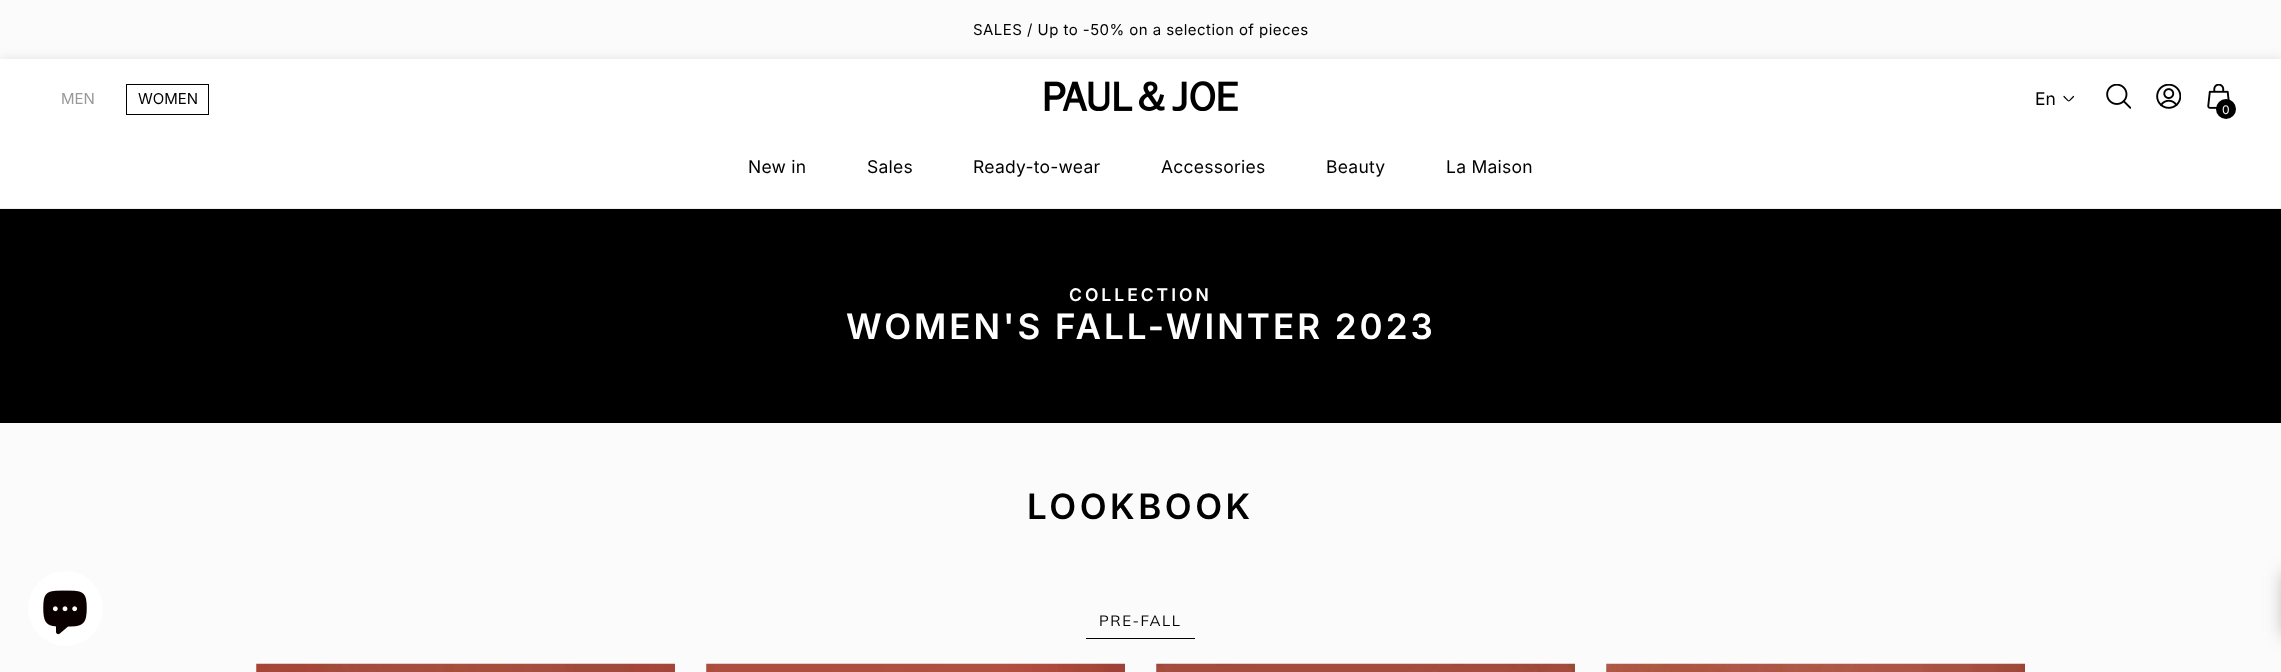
<svg xmlns="http://www.w3.org/2000/svg" width="2281" height="672">
	<rect width="100%" height="100%" fill="#FBFBFB" />
	<text x="973" y="35" font-family="Inter" font-size="15" letter-spacing="0.45" fill="#000000">SALES / Up to -50% on a selection of pieces</text>
	<rect x="0" y="209" width="2281" height="214" fill="#000000" />
	<rect x="1" y="59" width="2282" height="150" fill="#000000" fill-opacity="0.1" filter="blur(6px)" />
	<rect x="0" y="59" width="2281" height="149" fill="#FFFFFF" />
	<rect x="0" y="208" width="2281" height="1" fill="#EFEEEF" />
	<text x="61" y="104" font-family="Inter" font-size="15" fill="#999999">MEN</text>
	<rect x="126.5" y="84.5" width="82" height="30" fill="none" stroke="#000000" />
	<text x="138" y="104" font-family="Inter" font-size="15" fill="#000000">WOMEN</text>
	<image x="1044" y="81" width="194" height="30" href="assets/img1.png" />
	<text x="2035" y="105" font-family="Inter" font-size="17.5" fill="#000000">En</text>
	<path d="M2073.5 96.5C2067.5 102.5 2070 102.5 2064 96.5" fill="none" stroke="#000000" stroke-width="1.2" stroke-linecap="round" stroke-linejoin="round" />
	<image x="2106" y="84" width="25" height="25" href="assets/img2.png" />
	<image x="2156" y="84" width="25" height="25" href="assets/img3.png" />
	<image x="2207" y="84" width="23" height="25" href="assets/img4.png" />
	<circle cx="2226" cy="109" r="10" fill="#000000" />
	<text x="2222" y="114" font-family="Inter" font-size="12" fill="#FFFFFF">0</text>
	<g font-family="Inter" font-size="17.5" letter-spacing="0.25" fill="#000000">
		<text x="748" y="173">New in</text>
		<text x="867" y="173">Sales</text>
		<text x="973" y="173">Ready-to-wear</text>
		<text x="1161" y="173">Accessories</text>
		<text x="1326" y="173">Beauty</text>
		<text x="1446" y="173">La Maison</text>
	</g>
	<circle cx="65.5" cy="608.5" r="37.5" fill="#FFFFFF" />
	<image x="43" y="590" width="44" height="45" href="assets/img5.png" />
	<text x="1069" y="301" font-family="Inter" font-size="17.5" font-weight="600" letter-spacing="3" fill="#FFFFFF">COLLECTION</text>
	<text x="846" y="339" font-family="Inter" font-size="35" font-weight="600" letter-spacing="3" fill="#FFFFFF">WOMEN'S FALL-WINTER 2023</text>
	<text x="1027" y="519" font-family="Inter" font-size="35" font-weight="600" letter-spacing="3.5" fill="#000000">LOOKBOOK</text>
	<text x="1099" y="626" font-family="Mulish" font-size="15" letter-spacing="1.5" fill="#000000">PRE-FALL</text>
	<rect x="1086" y="638" width="109" height="1" fill="#000000" />
	<image x="256" y="663" width="419" height="9" href="assets/img6.png" />
	<image x="706" y="663" width="419" height="9" href="assets/img7.png" />
	<image x="1156" y="663" width="419" height="9" href="assets/img8.png" />
	<image x="1606" y="663" width="419" height="9" href="assets/img9.png" />
	<rect x="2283" y="573" width="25" height="62" fill="#757575" fill-opacity="0.5" filter="blur(9px)" />
</svg>
